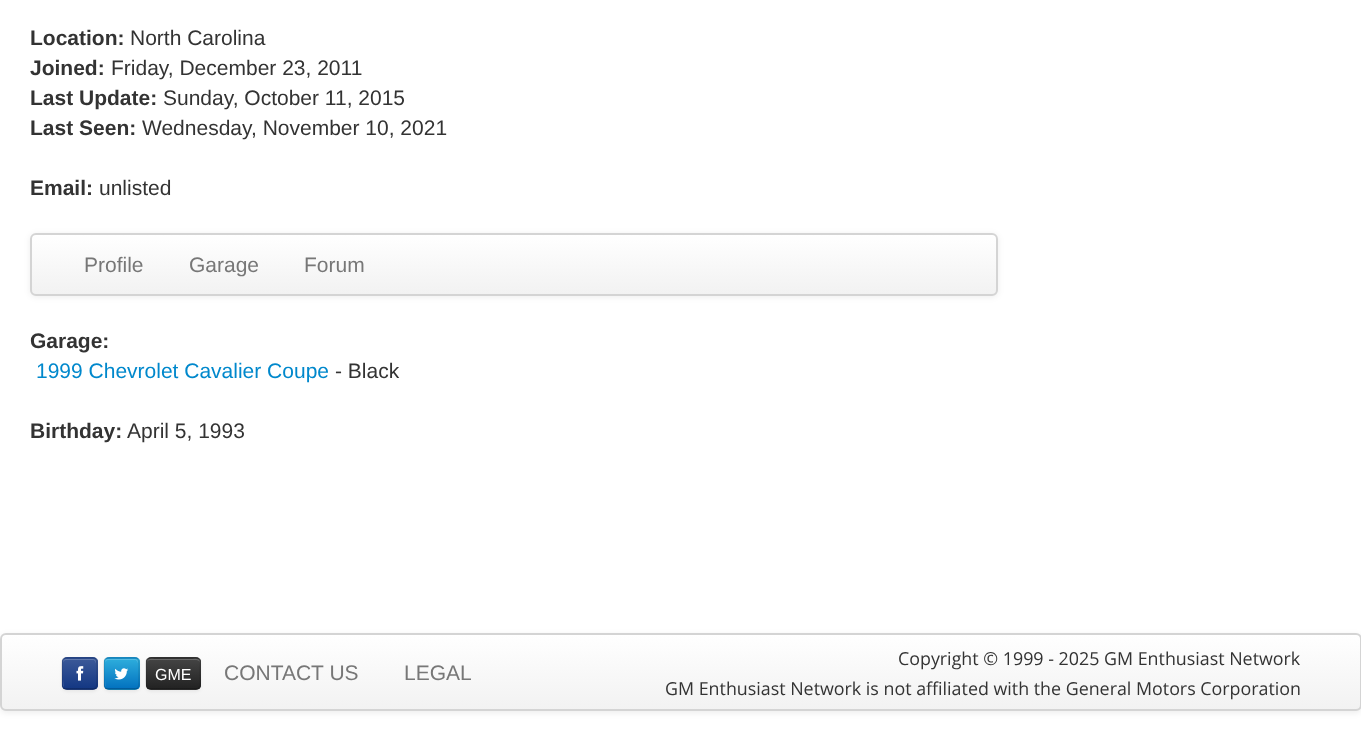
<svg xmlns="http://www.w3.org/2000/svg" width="1361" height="740">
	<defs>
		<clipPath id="clip1"><rect x="30" y="233" width="968" height="63" rx="6" /></clipPath>
		<linearGradient id="g1" gradientUnits="userSpaceOnUse" x1="514" y1="234" x2="514" y2="294"><stop offset="0" stop-color="#FFFFFF" /><stop offset="1" stop-color="#F2F2F2" /></linearGradient>
		<clipPath id="clip2"><rect x="0" y="633" width="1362" height="78" rx="6" /></clipPath>
		<linearGradient id="g2" gradientUnits="userSpaceOnUse" x1="681" y1="634" x2="681" y2="710"><stop offset="0" stop-color="#FFFFFF" /><stop offset="1" stop-color="#F2F2F2" /></linearGradient>
		<clipPath id="clip3"><rect x="62" y="657" width="36" height="33" rx="5" /></clipPath>
		<linearGradient id="g3" gradientUnits="userSpaceOnUse" x1="80" y1="659" x2="80" y2="689"><stop offset="0" stop-color="#3B5998" /><stop offset="1" stop-color="#133783" /></linearGradient>
		<clipPath id="clip4"><rect x="104" y="657" width="36" height="33" rx="5" /></clipPath>
		<linearGradient id="g4" gradientUnits="userSpaceOnUse" x1="122" y1="659" x2="122" y2="689"><stop offset="0" stop-color="#2DADDC" /><stop offset="1" stop-color="#0271BF" /></linearGradient>
		<clipPath id="clip5"><rect x="146" y="657" width="55" height="33" rx="5" /></clipPath>
		<linearGradient id="g5" gradientUnits="userSpaceOnUse" x1="173" y1="659" x2="173" y2="689"><stop offset="0" stop-color="#444444" /><stop offset="1" stop-color="#222222" /></linearGradient>
	</defs>
	<rect width="100%" height="100%" fill="#FFFFFF" />
	<text x="30" y="45" font-family="Liberation Sans" font-size="21" font-weight="700" fill="#333333">Location:</text>
	<text x="130" y="45" font-family="Liberation Sans" font-size="21" fill="#333333">North Carolina</text>
	<text x="30" y="75" font-family="Liberation Sans" font-size="21" font-weight="700" fill="#333333">Joined:</text>
	<text x="111" y="75" font-family="Liberation Sans" font-size="21" fill="#333333">Friday, December 23, 2011</text>
	<text x="30" y="105" font-family="Liberation Sans" font-size="21" font-weight="700" fill="#333333">Last Update:</text>
	<text x="163" y="105" font-family="Liberation Sans" font-size="21" fill="#333333">Sunday, October 11, 2015</text>
	<text x="30" y="135" font-family="Liberation Sans" font-size="21" font-weight="700" fill="#333333">Last Seen:</text>
	<text x="142" y="135" font-family="Liberation Sans" font-size="21" fill="#333333">Wednesday, November 10, 2021</text>
	<text x="30" y="195" font-family="Liberation Sans" font-size="21" font-weight="700" fill="#333333">Email:</text>
	<text x="99" y="195" font-family="Liberation Sans" font-size="21" fill="#333333">unlisted</text>
	<rect x="30" y="234" width="968" height="63" rx="6" fill="#000000" fill-opacity="0.07" filter="blur(3px)" />
	<g clip-path="url(#clip1)">
		<rect x="30" y="234" width="968" height="60" fill="url(#g1)" />
	</g>
	<rect x="31" y="234" width="966" height="61" rx="5" fill="none" stroke="#D4D4D4" stroke-width="2" />
	<g font-family="Liberation Sans" font-size="21" fill="#777777">
		<text x="84" y="272">Profile</text>
		<text x="189" y="272">Garage</text>
		<text x="304" y="272">Forum</text>
	</g>
	<text x="30" y="348" font-family="Liberation Sans" font-size="21" font-weight="700" fill="#333333">Garage:</text>
	<text x="36" y="378" font-family="Liberation Sans" font-size="21" fill="#0088CC">1999 Chevrolet Cavalier Coupe</text>
	<text x="335" y="378" font-family="Liberation Sans" font-size="21" fill="#333333">- Black</text>
	<text x="30" y="438" font-family="Liberation Sans" font-size="21" font-weight="700" fill="#333333">Birthday:</text>
	<text x="127" y="438" font-family="Liberation Sans" font-size="21" fill="#333333">April 5, 1993</text>
	<rect x="0" y="635" width="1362" height="78" rx="6" fill="#000000" fill-opacity="0.07" filter="blur(3px)" />
	<g clip-path="url(#clip2)">
		<rect x="0" y="635" width="1361" height="75" fill="url(#g2)" />
	</g>
	<rect x="1" y="634" width="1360" height="76" rx="5" fill="none" stroke="#D4D4D4" stroke-width="2" />
	<rect x="62" y="659" width="36" height="33" rx="5" fill="#000000" fill-opacity="0.05" filter="blur(1.5px)" />
	<rect x="62" y="657" width="36" height="33" rx="5" fill="#2B4B90" />
	<g clip-path="url(#clip3)">
		<rect x="62" y="659" width="36" height="30" fill="url(#g3)" />
	</g>
	<path d="M66 660H94C95 661 95.5 662 96 663.5C96 658 93.5 659 88.5 659H70.5C67.5 659 63 658 63 662.5C63.5 661 64.5 660 66 660ZM96 685.5V687ZM63.5 687.5L63 679C63 681 62.5 685.5 63.5 687.5Z" fill="#6179AD" fill-rule="evenodd" />
	<path d="M95.5 688C95 689 94 689 93 689H66C65 689 64 689 63.5 688" fill="none" stroke="#000000" stroke-opacity="0.25" stroke-width="1.5" />
	<path d="M63.5 688C61.5 686.5 62 683.5 62 681.5V673.5C62 654.5 60 658 79.5 658C99 658 97 654.5 97 673.5V681.5C97 683.5 97.5 686.5 95.5 688" fill="none" stroke="#000000" stroke-opacity="0.1" stroke-width="1.5" />
	<image x="76" y="666" width="8" height="15" href="assets/img1.png" />
	<rect x="104" y="659" width="36" height="33" rx="5" fill="#000000" fill-opacity="0.05" filter="blur(1.5px)" />
	<rect x="104" y="657" width="36" height="33" rx="5" fill="#1C95D0" />
	<g clip-path="url(#clip4)">
		<rect x="104" y="659" width="36" height="30" fill="url(#g4)" />
	</g>
	<path d="M108 660H136C137 661 137.5 662 138 663.5C138 658 135.5 659 130.5 659H112.5C109.5 659 105 658 105 662.5C105.5 661 106.5 660 108 660ZM138 685.5V687ZM105.5 687.5L105 679C105 681 104.5 685.5 105.5 687.5Z" fill="#FFFFFF" fill-opacity="0.2" fill-rule="evenodd" />
	<path d="M137.5 688C137 689 136 689 135 689H108C107 689 106 689 105.5 688" fill="none" stroke="#000000" stroke-opacity="0.25" stroke-width="1.5" />
	<path d="M105.5 688C103.5 686.5 104 683.5 104 681.5V673.5C104 654.5 102 658 121.5 658C141 658 139 654.5 139 673.5V681.5C139 683.5 139.5 686.5 137.5 688" fill="none" stroke="#000000" stroke-opacity="0.1" stroke-width="1.5" />
	<image x="114" y="668" width="15" height="12" href="assets/img2.png" />
	<rect x="146" y="659" width="55" height="33" rx="5" fill="#000000" fill-opacity="0.05" filter="blur(1.5px)" />
	<rect x="146" y="657" width="55" height="33" rx="5" fill="#363636" />
	<g clip-path="url(#clip5)">
		<rect x="146" y="659" width="55" height="30" fill="url(#g5)" />
	</g>
	<path d="M150 660H196C198 660 200 661 200 663C200 657 194 659 189 659H158C153 659 147 657 147 663C147 661 148 660 150 660Z" fill="#696969" />
	<path d="M199 688C198.5 689 197.5 689 196.5 689H150C149 689 148 689 147.5 688" fill="none" stroke="#000000" stroke-opacity="0.25" stroke-width="1.5" />
	<path d="M147.5 688C145 686 146 676.5 146 673.5C146 658 143 658 158 658H189C203.5 658 200 658 200 673.5C200 676.5 201.5 686 199 688" fill="none" stroke="#000000" stroke-opacity="0.1" stroke-width="1.5" />
	<text x="155" y="680" font-family="Liberation Sans" font-size="16" fill="#FFFFFF">GME</text>
	<g font-family="Liberation Sans" font-size="21" fill="#777777">
		<text x="224" y="680">CONTACT US</text>
		<text x="404" y="680">LEGAL</text>
	</g>
	<g font-family="Open Sans" font-size="17.85" fill="#333333">
		<text x="898" y="665">Copyright © 1999 - 2025 GM Enthusiast Network</text>
		<text x="665" y="695">GM Enthusiast Network is not affiliated with the General Motors Corporation</text>
	</g>
</svg>
